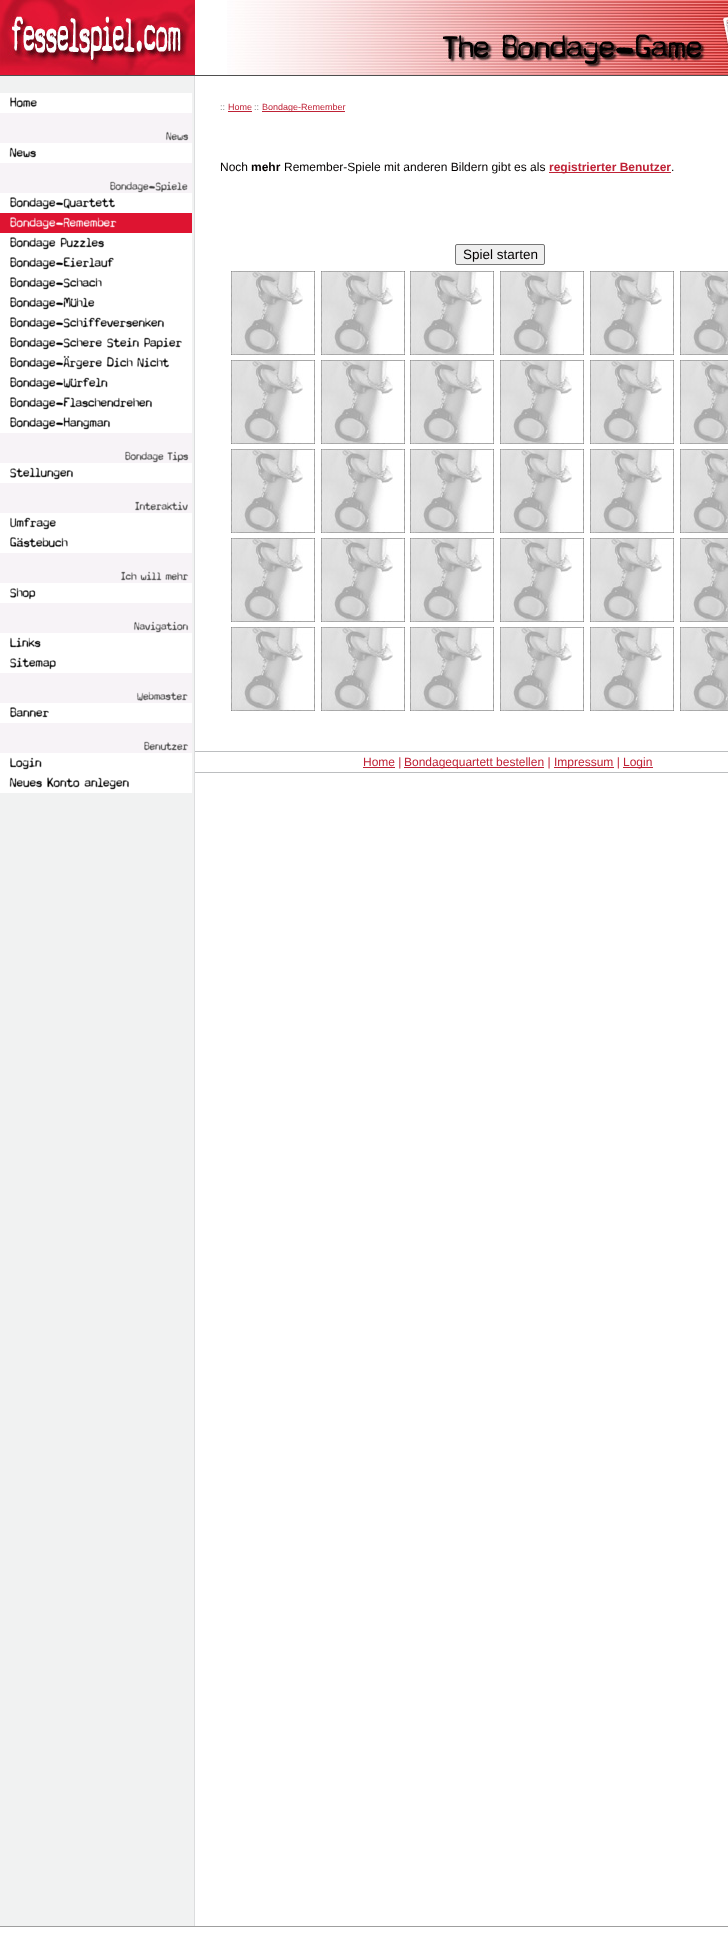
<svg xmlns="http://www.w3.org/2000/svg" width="728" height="1947">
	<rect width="100%" height="100%" fill="#FFFFFF" />
	<rect x="0" y="75" width="728" height="1" fill="#4F4F4F" />
	<image x="0" y="0" width="195" height="75" href="assets/img1.png" />
	<image x="227" y="0" width="501" height="75" href="assets/img2.png" />
	<rect x="0" y="76" width="194" height="1850" fill="#F1F2F2" />
	<rect x="194" y="76" width="1" height="1850" fill="#DCDDDE" />
	<image x="0" y="93" width="192" height="20" href="assets/img3.png" />
	<image x="0" y="113" width="192" height="30" href="assets/img4.png" />
	<image x="0" y="143" width="192" height="20" href="assets/img5.png" />
	<image x="0" y="163" width="192" height="30" href="assets/img6.png" />
	<image x="0" y="193" width="192" height="20" href="assets/img7.png" />
	<image x="0" y="213" width="192" height="20" href="assets/img8.png" />
	<image x="0" y="233" width="192" height="20" href="assets/img9.png" />
	<image x="0" y="253" width="192" height="20" href="assets/img10.png" />
	<image x="0" y="273" width="192" height="20" href="assets/img11.png" />
	<image x="0" y="293" width="192" height="20" href="assets/img12.png" />
	<image x="0" y="313" width="192" height="20" href="assets/img13.png" />
	<image x="0" y="333" width="192" height="20" href="assets/img14.png" />
	<image x="0" y="353" width="192" height="20" href="assets/img15.png" />
	<image x="0" y="373" width="192" height="20" href="assets/img16.png" />
	<image x="0" y="393" width="192" height="20" href="assets/img17.png" />
	<image x="0" y="413" width="192" height="20" href="assets/img18.png" />
	<image x="0" y="433" width="192" height="30" href="assets/img19.png" />
	<image x="0" y="463" width="192" height="20" href="assets/img20.png" />
	<image x="0" y="483" width="192" height="30" href="assets/img21.png" />
	<image x="0" y="513" width="192" height="20" href="assets/img22.png" />
	<image x="0" y="533" width="192" height="20" href="assets/img23.png" />
	<image x="0" y="553" width="192" height="30" href="assets/img24.png" />
	<image x="0" y="583" width="192" height="20" href="assets/img25.png" />
	<image x="0" y="603" width="192" height="30" href="assets/img26.png" />
	<image x="0" y="633" width="192" height="20" href="assets/img27.png" />
	<image x="0" y="653" width="192" height="20" href="assets/img28.png" />
	<image x="0" y="673" width="192" height="30" href="assets/img29.png" />
	<image x="0" y="703" width="192" height="20" href="assets/img30.png" />
	<image x="0" y="723" width="192" height="30" href="assets/img31.png" />
	<image x="0" y="753" width="192" height="20" href="assets/img32.png" />
	<image x="0" y="773" width="192" height="20" href="assets/img33.png" />
	<text x="220" y="110" font-family="Liberation Sans" font-size="9" fill="#808080">::</text>
	<text x="228" y="110" font-family="Liberation Sans" font-size="9" fill="#BF2236">Home</text>
	<rect x="228" y="111" width="24" height="1" fill="#BF2236" />
	<text x="254" y="110" font-family="Liberation Sans" font-size="9" fill="#808080">::</text>
	<rect x="262" y="111" width="83" height="1" fill="#BF2236" />
	<text x="262" y="110" font-family="Liberation Sans" font-size="9" fill="#BF2236">Bondage-Remember</text>
	<text x="220" y="171" font-family="Liberation Sans" font-size="12" fill="#040000">Noch</text>
	<text x="251" y="171" font-family="Liberation Sans" font-size="12" font-weight="700" fill="#040000">mehr</text>
	<text x="284" y="171" font-family="Liberation Sans" font-size="12" fill="#040000">Remember-Spiele mit anderen Bildern gibt es als</text>
	<rect x="549" y="172" width="122" height="1" fill="#BF2236" />
	<text x="549" y="171" font-family="Liberation Sans" font-size="12" font-weight="700" fill="#BF2236">registrierter Benutzer</text>
	<text x="671" y="171" font-family="Liberation Sans" font-size="12" fill="#040000">.</text>
	<rect x="455.5" y="244.5" width="89" height="20" rx="1.5" fill="#EFEFEF" stroke="#767676" />
	<text x="463" y="259" font-family="Liberation Sans" font-size="13.5" fill="#040000">Spiel starten</text>
	<image x="231" y="271" width="84" height="84" href="assets/img34.png" />
	<image x="321" y="271" width="84" height="84" href="assets/img34.png" />
	<image x="410" y="271" width="84" height="84" href="assets/img34.png" />
	<image x="500" y="271" width="84" height="84" href="assets/img34.png" />
	<image x="590" y="271" width="84" height="84" href="assets/img34.png" />
	<image x="680" y="271" width="48" height="84" href="assets/img35.png" />
	<image x="231" y="360" width="84" height="84" href="assets/img34.png" />
	<image x="321" y="360" width="84" height="84" href="assets/img34.png" />
	<image x="410" y="360" width="84" height="84" href="assets/img34.png" />
	<image x="500" y="360" width="84" height="84" href="assets/img34.png" />
	<image x="590" y="360" width="84" height="84" href="assets/img34.png" />
	<image x="680" y="360" width="48" height="84" href="assets/img35.png" />
	<image x="231" y="449" width="84" height="84" href="assets/img34.png" />
	<image x="321" y="449" width="84" height="84" href="assets/img34.png" />
	<image x="410" y="449" width="84" height="84" href="assets/img34.png" />
	<image x="500" y="449" width="84" height="84" href="assets/img34.png" />
	<image x="590" y="449" width="84" height="84" href="assets/img34.png" />
	<image x="680" y="449" width="48" height="84" href="assets/img35.png" />
	<image x="231" y="538" width="84" height="84" href="assets/img34.png" />
	<image x="321" y="538" width="84" height="84" href="assets/img34.png" />
	<image x="410" y="538" width="84" height="84" href="assets/img34.png" />
	<image x="500" y="538" width="84" height="84" href="assets/img34.png" />
	<image x="590" y="538" width="84" height="84" href="assets/img34.png" />
	<image x="680" y="538" width="48" height="84" href="assets/img35.png" />
	<image x="231" y="627" width="84" height="84" href="assets/img34.png" />
	<image x="321" y="627" width="84" height="84" href="assets/img34.png" />
	<image x="410" y="627" width="84" height="84" href="assets/img34.png" />
	<image x="500" y="627" width="84" height="84" href="assets/img34.png" />
	<image x="590" y="627" width="84" height="84" href="assets/img34.png" />
	<image x="680" y="627" width="48" height="84" href="assets/img35.png" />
	<rect x="195" y="751" width="533" height="1" fill="#BCBEC0" />
	<rect x="195" y="772" width="533" height="1" fill="#BCBEC0" />
	<rect x="363" y="767" width="32" height="1" fill="#BF2236" />
	<text x="363" y="766" font-family="Liberation Sans" font-size="12" fill="#BF2236">Home |</text>
	<rect x="404" y="767" width="140" height="1" fill="#BF2236" />
	<text x="404" y="766" font-family="Liberation Sans" font-size="12" fill="#BF2236">Bondagequartett bestellen |</text>
	<rect x="554" y="767" width="60" height="1" fill="#BF2236" />
	<text x="554" y="766" font-family="Liberation Sans" font-size="12" fill="#BF2236">Impressum |</text>
	<rect x="623" y="767" width="30" height="1" fill="#BF2236" />
	<text x="623" y="766" font-family="Liberation Sans" font-size="12" fill="#BF2236">Login</text>
	<rect x="0" y="1926" width="728" height="1" fill="#9F9F9F" />
</svg>
